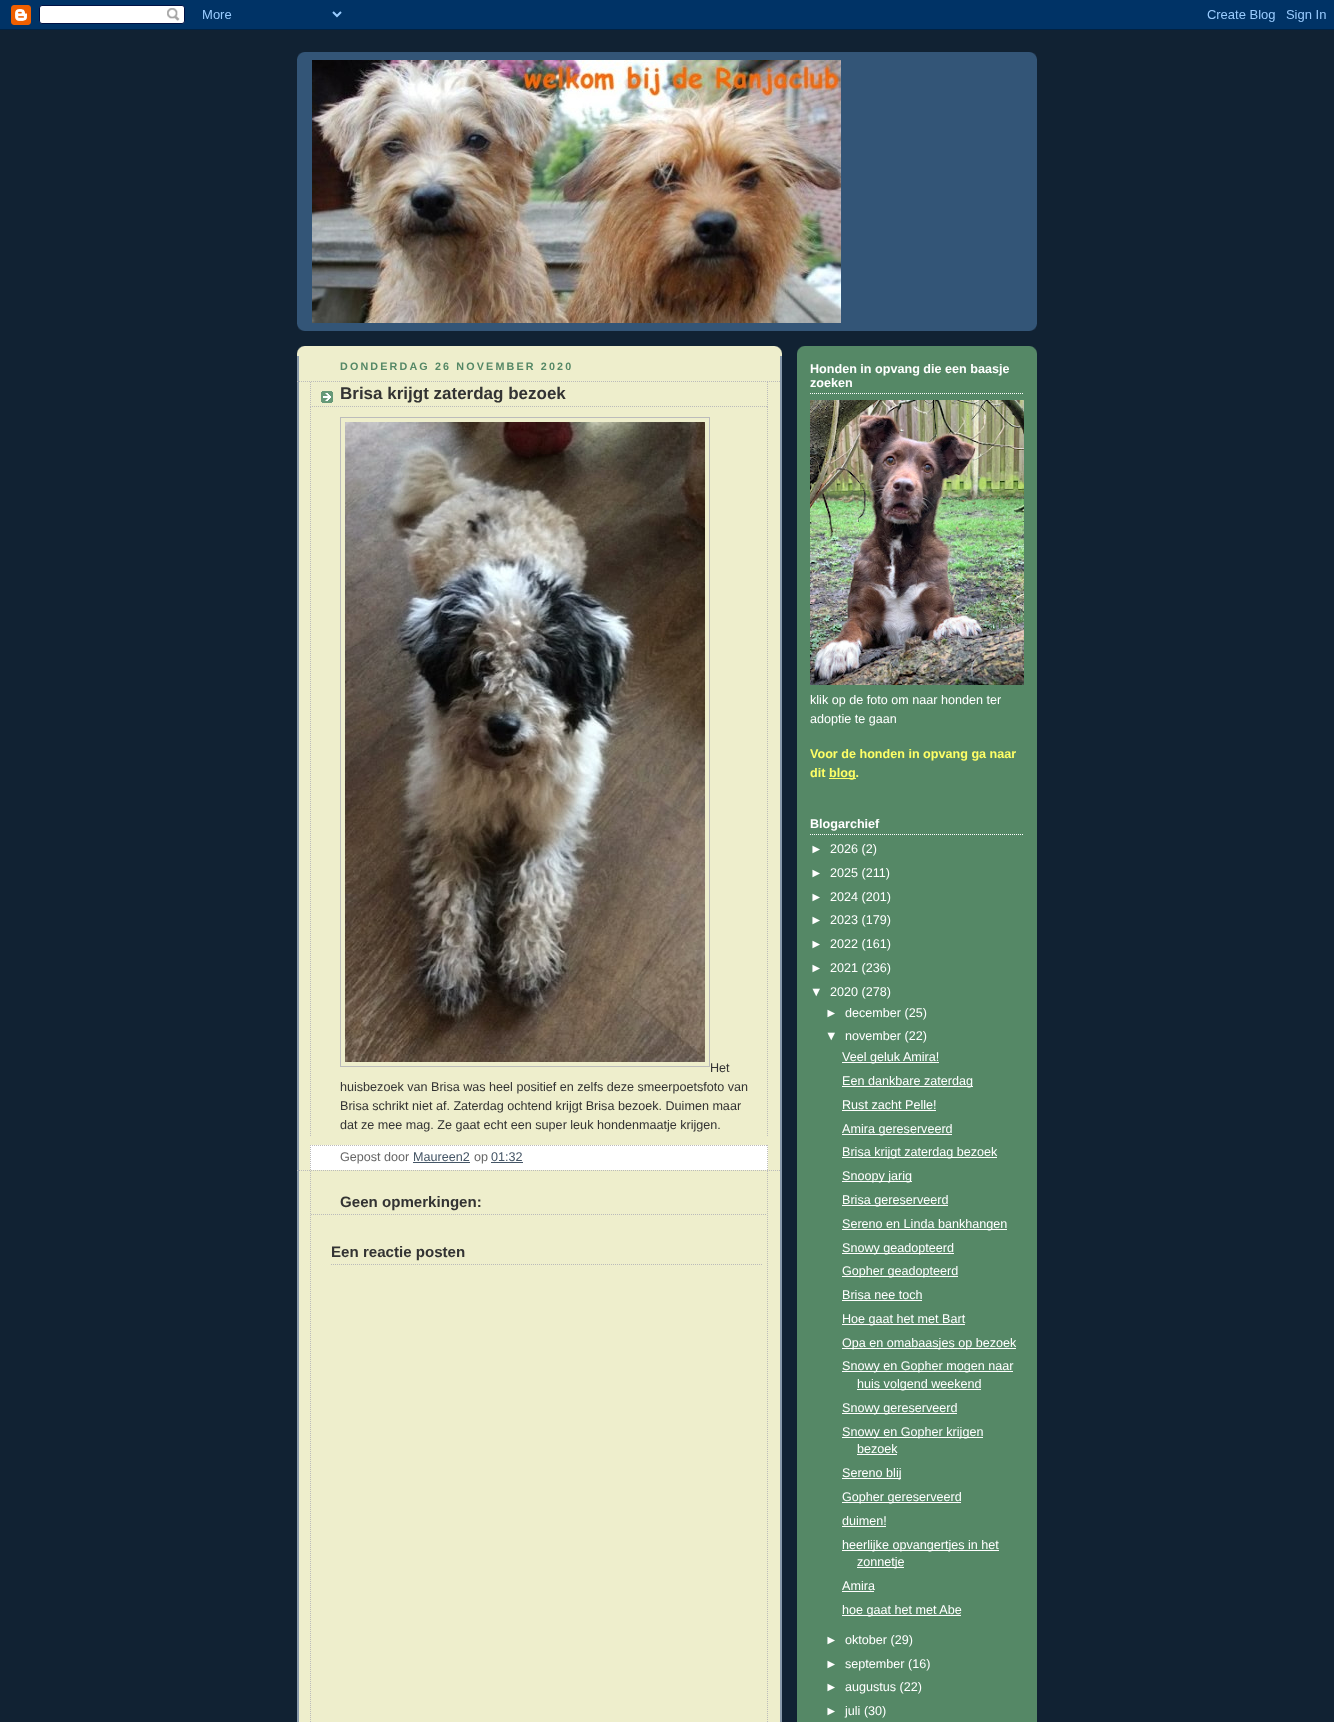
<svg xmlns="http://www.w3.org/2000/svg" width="1334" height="1722">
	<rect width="100%" height="100%" fill="#112233" />
	<image x="0" y="0" width="1334" height="30" href="assets/img1.png" />
	<rect x="297" y="52" width="740" height="279" fill="#335577" />
	<image x="297" y="52" width="740" height="7" href="assets/img2.png" />
	<image x="297" y="324" width="740" height="7" href="assets/img3.png" />
	<image x="312" y="60" width="529" height="263" href="assets/img4.png" />
	<rect x="297" y="346" width="485" height="1376" fill="#EEEECC" />
	<image x="297" y="346" width="485" height="8" href="assets/img5.png" />
	<image x="297" y="356" width="485" height="1366" href="assets/img6.png" />
	<text x="340" y="370" font-family="Liberation Sans" font-size="10.75" font-weight="700" letter-spacing="2.15" fill="#558866">DONDERDAG 26 NOVEMBER 2020</text>
	<path d="M297 381.5H781" fill="none" stroke="#BBBBBB" stroke-dasharray="1 1" />
	<path d="M297 1170.5H781" fill="none" stroke="#BBBBBB" stroke-dasharray="1 1" />
	<image x="321" y="391" width="12" height="12" href="assets/img7.png" />
	<path d="M767.5 382V407" fill="none" stroke="#BBBBBB" stroke-dasharray="1 1" />
	<path d="M310 406.5H768" fill="none" stroke="#BBBBBB" stroke-dasharray="1 1" />
	<path d="M310.5 382V407" fill="none" stroke="#BBBBBB" stroke-dasharray="1 1" />
	<text x="340" y="399" font-family="Liberation Sans" font-size="17" font-weight="700" fill="#333333">Brisa krijgt zaterdag bezoek</text>
	<path d="M767.5 407V1136" fill="none" stroke="#BBBBBB" stroke-dasharray="1 1" />
	<path d="M310.5 407V1136" fill="none" stroke="#BBBBBB" stroke-dasharray="1 1" />
	<rect x="340.5" y="417.5" width="369" height="649" fill="none" stroke="#BBBBBB" />
	<image x="345" y="422" width="360" height="640" href="assets/img8.png" />
	<g font-family="Liberation Sans" font-size="12.6" fill="#333333">
		<text x="710" y="1072">Het</text>
		<text x="340" y="1091">huisbezoek van Brisa was heel positief en zelfs deze smeerpoetsfoto van</text>
		<text x="340" y="1110">Brisa schrikt niet af. Zaterdag ochtend krijgt Brisa bezoek. Duimen maar</text>
		<text x="340" y="1129">dat ze mee mag. Ze gaat echt een super leuk hondenmaatje krijgen.</text>
	</g>
	<rect x="310" y="1145" width="458" height="25" fill="#FFFFFF" />
	<path d="M310 1145.5H768" fill="none" stroke="#BBBBBB" stroke-dasharray="1 1" />
	<path d="M767.5 1145V1170" fill="none" stroke="#BBBBBB" stroke-dasharray="1 1" />
	<path d="M310.5 1145V1170" fill="none" stroke="#BBBBBB" stroke-dasharray="1 1" />
	<text x="340" y="1161" font-family="Liberation Sans" font-size="12.6" fill="#666666">Gepost door</text>
	<text x="413" y="1161" font-family="Liberation Sans" font-size="12.6" fill="#445566">Maureen2</text>
	<rect x="413" y="1162" width="57" height="1" fill="#445566" />
	<text x="474" y="1161" font-family="Liberation Sans" font-size="12.6" fill="#666666">op</text>
	<text x="491" y="1161" font-family="Liberation Sans" font-size="12.6" fill="#445566">01:32</text>
	<rect x="491" y="1162" width="32" height="1" fill="#445566" />
	<path d="M767.5 1171V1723" fill="none" stroke="#BBBBBB" stroke-dasharray="1 1" />
	<path d="M310.5 1171V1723" fill="none" stroke="#BBBBBB" stroke-dasharray="1 1" />
	<path d="M311 1214.5H767" fill="none" stroke="#BBBBBB" stroke-dasharray="1 1" />
	<text x="340" y="1207" font-family="Liberation Sans" font-size="15.1" font-weight="700" fill="#333333">Geen opmerkingen:</text>
	<path d="M331 1264.5H762" fill="none" stroke="#BBBBBB" stroke-dasharray="1 1" />
	<text x="331" y="1257" font-family="Liberation Sans" font-size="15.1" font-weight="700" fill="#333333">Een reactie posten</text>
	<rect x="797" y="346" width="240" height="1376" fill="#558866" />
	<image x="797" y="346" width="240" height="8" href="assets/img9.png" />
	<path d="M810 393.5H1024" fill="none" stroke="#FFFFFF" stroke-dasharray="1 1" />
	<g font-family="Liberation Sans" font-size="12.6" font-weight="700" fill="#FFFFFF">
		<text x="810" y="373">Honden in opvang die een baasje</text>
		<text x="810" y="387">zoeken</text>
	</g>
	<image x="810" y="400" width="214" height="285" href="assets/img10.png" />
	<g font-family="Liberation Sans" font-size="12.6" fill="#FFFFFF">
		<text x="810" y="704">klik op de foto om naar honden ter</text>
		<text x="810" y="723">adoptie te gaan</text>
	</g>
	<g font-family="Liberation Sans" font-size="12.6" font-weight="700" fill="#FFFF66">
		<text x="810" y="758">Voor de honden in opvang ga naar</text>
		<text x="810" y="777">dit</text>
	</g>
	<rect x="829" y="778" width="27" height="1" fill="#FFFF66" />
	<text x="829" y="777" font-family="Liberation Sans" font-size="12.6" font-weight="700" fill="#FFFF66">blog.</text>
	<path d="M810 834.5H1024" fill="none" stroke="#FFFFFF" stroke-dasharray="1 1" />
	<text x="810" y="828" font-family="Liberation Sans" font-size="12.6" font-weight="700" fill="#FFFFFF">Blogarchief</text>
	<g font-family="Liberation Sans" font-size="12.6" fill="#FFFFFF">
		<text x="810" y="853">►</text>
		<text x="830" y="853">2026 (2)</text>
		<text x="810" y="877">►</text>
		<text x="830" y="877">2025 (211)</text>
		<text x="810" y="901">►</text>
		<text x="830" y="901">2024 (201)</text>
		<text x="810" y="924">►</text>
		<text x="830" y="924">2023 (179)</text>
		<text x="810" y="948">►</text>
		<text x="830" y="948">2022 (161)</text>
		<text x="810" y="972">►</text>
		<text x="830" y="972">2021 (236)</text>
		<text x="810" y="996">▼</text>
		<text x="830" y="996">2020 (278)</text>
		<text x="825" y="1017">►</text>
		<text x="845" y="1017">december (25)</text>
		<text x="825" y="1040">▼</text>
		<text x="845" y="1040">november (22)</text>
	</g>
	<rect x="842" y="1062" width="97" height="1" fill="#FFFFFF" />
	<text x="842" y="1061" font-family="Liberation Sans" font-size="12.6" fill="#FFFFFF">Veel geluk Amira!</text>
	<rect x="842" y="1086" width="131" height="1" fill="#FFFFFF" />
	<g font-family="Liberation Sans" font-size="12.6" fill="#FFFFFF">
		<text x="842" y="1085">Een dankbare zaterdag</text>
		<text x="842" y="1109">Rust zacht Pelle!</text>
	</g>
	<rect x="842" y="1110" width="94" height="1" fill="#FFFFFF" />
	<rect x="842" y="1134" width="110" height="1" fill="#FFFFFF" />
	<text x="842" y="1133" font-family="Liberation Sans" font-size="12.6" fill="#FFFFFF">Amira gereserveerd</text>
	<rect x="842" y="1157" width="155" height="1" fill="#FFFFFF" />
	<text x="842" y="1156" font-family="Liberation Sans" font-size="12.6" fill="#FFFFFF">Brisa krijgt zaterdag bezoek</text>
	<rect x="842" y="1181" width="70" height="1" fill="#FFFFFF" />
	<text x="842" y="1180" font-family="Liberation Sans" font-size="12.6" fill="#FFFFFF">Snoopy jarig</text>
	<rect x="842" y="1205" width="106" height="1" fill="#FFFFFF" />
	<text x="842" y="1204" font-family="Liberation Sans" font-size="12.6" fill="#FFFFFF">Brisa gereserveerd</text>
	<rect x="842" y="1229" width="165" height="1" fill="#FFFFFF" />
	<text x="842" y="1228" font-family="Liberation Sans" font-size="12.6" fill="#FFFFFF">Sereno en Linda bankhangen</text>
	<rect x="842" y="1253" width="112" height="1" fill="#FFFFFF" />
	<text x="842" y="1252" font-family="Liberation Sans" font-size="12.6" fill="#FFFFFF">Snowy geadopteerd</text>
	<rect x="842" y="1276" width="116" height="1" fill="#FFFFFF" />
	<g font-family="Liberation Sans" font-size="12.6" fill="#FFFFFF">
		<text x="842" y="1275">Gopher geadopteerd</text>
		<text x="842" y="1299">Brisa nee toch</text>
	</g>
	<rect x="842" y="1300" width="80" height="1" fill="#FFFFFF" />
	<rect x="842" y="1324" width="123" height="1" fill="#FFFFFF" />
	<text x="842" y="1323" font-family="Liberation Sans" font-size="12.6" fill="#FFFFFF">Hoe gaat het met Bart</text>
	<rect x="842" y="1348" width="174" height="1" fill="#FFFFFF" />
	<text x="842" y="1347" font-family="Liberation Sans" font-size="12.6" fill="#FFFFFF">Opa en omabaasjes op bezoek</text>
	<rect x="842" y="1371" width="171" height="1" fill="#FFFFFF" />
	<text x="842" y="1370" font-family="Liberation Sans" font-size="12.6" fill="#FFFFFF">Snowy en Gopher mogen naar</text>
	<rect x="857" y="1389" width="124" height="1" fill="#FFFFFF" />
	<text x="857" y="1388" font-family="Liberation Sans" font-size="12.6" fill="#FFFFFF">huis volgend weekend</text>
	<rect x="842" y="1413" width="115" height="1" fill="#FFFFFF" />
	<text x="842" y="1412" font-family="Liberation Sans" font-size="12.6" fill="#FFFFFF">Snowy gereserveerd</text>
	<rect x="842" y="1437" width="141" height="1" fill="#FFFFFF" />
	<g font-family="Liberation Sans" font-size="12.6" fill="#FFFFFF">
		<text x="842" y="1436">Snowy en Gopher krijgen</text>
		<text x="857" y="1453">bezoek</text>
	</g>
	<rect x="857" y="1454" width="40" height="1" fill="#FFFFFF" />
	<rect x="842" y="1478" width="59" height="1" fill="#FFFFFF" />
	<text x="842" y="1477" font-family="Liberation Sans" font-size="12.6" fill="#FFFFFF">Sereno blij</text>
	<rect x="842" y="1502" width="119" height="1" fill="#FFFFFF" />
	<g font-family="Liberation Sans" font-size="12.6" fill="#FFFFFF">
		<text x="842" y="1501">Gopher gereserveerd</text>
		<text x="842" y="1525">duimen!</text>
	</g>
	<rect x="842" y="1526" width="44" height="1" fill="#FFFFFF" />
	<rect x="842" y="1550" width="157" height="1" fill="#FFFFFF" />
	<text x="842" y="1549" font-family="Liberation Sans" font-size="12.6" fill="#FFFFFF">heerlijke opvangertjes in het</text>
	<rect x="857" y="1567" width="47" height="1" fill="#FFFFFF" />
	<g font-family="Liberation Sans" font-size="12.6" fill="#FFFFFF">
		<text x="857" y="1566">zonnetje</text>
		<text x="842" y="1590">Amira</text>
	</g>
	<rect x="842" y="1591" width="32" height="1" fill="#FFFFFF" />
	<rect x="842" y="1615" width="119" height="1" fill="#FFFFFF" />
	<g font-family="Liberation Sans" font-size="12.6" fill="#FFFFFF">
		<text x="842" y="1614">hoe gaat het met Abe</text>
		<text x="825" y="1644">►</text>
		<text x="845" y="1644">oktober (29)</text>
		<text x="825" y="1668">►</text>
		<text x="845" y="1668">september (16)</text>
		<text x="825" y="1691">►</text>
		<text x="845" y="1691">augustus (22)</text>
		<text x="825" y="1715">►</text>
		<text x="845" y="1715">juli (30)</text>
	</g>
</svg>
